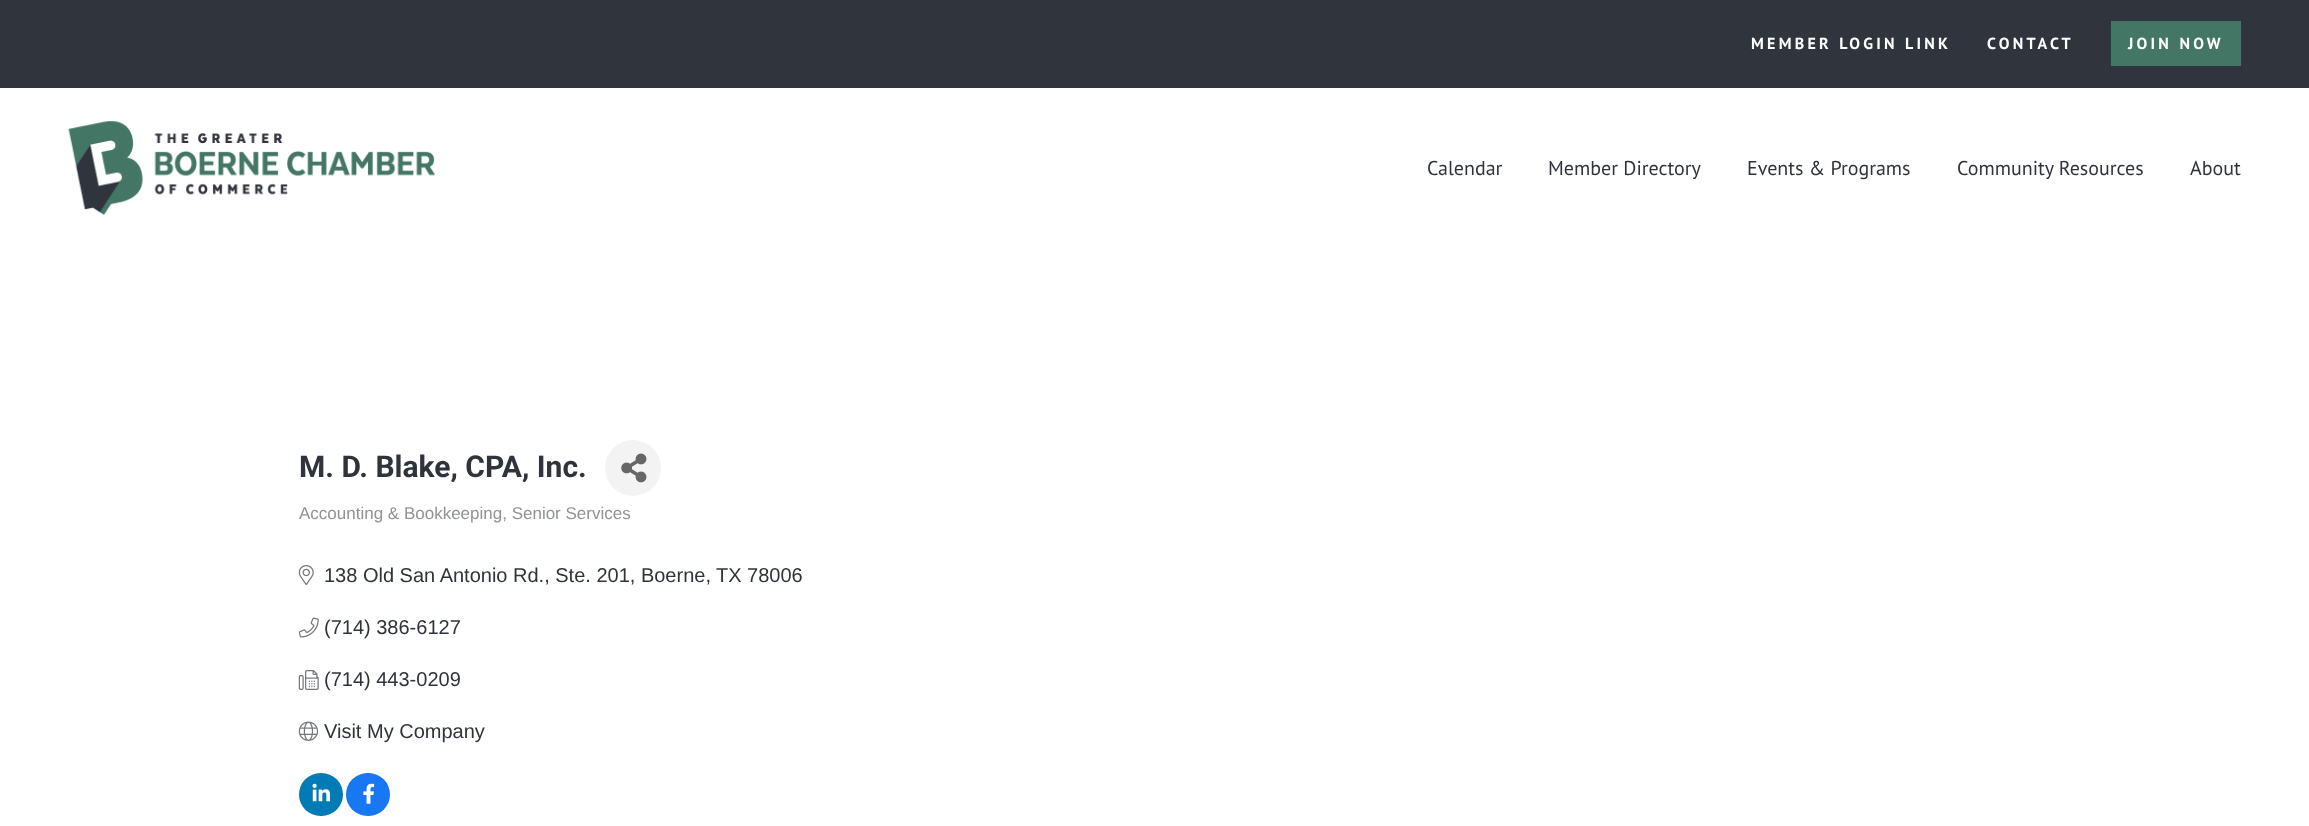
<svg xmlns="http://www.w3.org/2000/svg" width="2309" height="826">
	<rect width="100%" height="100%" fill="#FFFFFF" />
	<rect x="0" y="0" width="2309" height="88" fill="#2F343D" />
	<g font-family="PT Sans" font-size="16" font-weight="700" letter-spacing="3.25" fill="#FFFFFF">
		<text x="1751" y="49">MEMBER LOGIN LINK</text>
		<text x="1987" y="49">CONTACT</text>
	</g>
	<rect x="2111" y="21" width="130" height="45" fill="#437665" />
	<text x="2128" y="49" font-family="PT Sans" font-size="16" font-weight="700" letter-spacing="3.25" fill="#FFFFFF">JOIN NOW</text>
	<image x="68" y="121" width="368" height="95" href="assets/img1.png" />
	<g font-family="PT Sans" font-size="20" fill="#2F333C">
		<text x="1427" y="175">Calendar</text>
		<text x="1548" y="175">Member Directory</text>
		<text x="1747" y="175">Events &amp; Programs</text>
		<text x="1957" y="175">Community Resources</text>
		<text x="2190" y="175">About</text>
	</g>
	<text x="299" y="477" font-family="Roboto" font-size="30" font-weight="700" fill="#2F333C">M. D. Blake, CPA, Inc.</text>
	<circle cx="633" cy="468" r="28" fill="#F3F3F3" />
	<image x="621" y="453" width="26" height="30" href="assets/img2.png" />
	<text x="299" y="519" font-family="Liberation Sans" font-size="17" fill="#919397">Accounting &amp; Bookkeeping, Senior Services</text>
	<image x="298" y="565" width="16" height="20" href="assets/img3.png" />
	<g font-family="Liberation Sans" font-size="20" fill="#2F333C">
		<text x="324" y="582">138 Old San Antonio Rd., Ste. 201, Boerne,</text>
		<text x="716" y="582">TX 78006</text>
	</g>
	<image x="298" y="617" width="21" height="21" href="assets/img4.png" />
	<text x="324" y="634" font-family="Liberation Sans" font-size="20" fill="#2F333C">(714) 386-6127</text>
	<image x="298" y="670" width="21" height="20" href="assets/img5.png" />
	<text x="324" y="686" font-family="Liberation Sans" font-size="20" fill="#2F333C">(714) 443-0209</text>
	<image x="298" y="721" width="21" height="20" href="assets/img6.png" />
	<text x="324" y="738" font-family="Liberation Sans" font-size="20" fill="#2F333C">Visit My Company</text>
	<rect x="299" y="773" width="44" height="43" rx="21.5" fill="#007BB5" />
	<image x="312" y="783" width="18" height="19" href="assets/img7.png" />
	<rect x="346" y="773" width="44" height="43" rx="21.5" fill="#1877F2" />
	<image x="363" y="783" width="12" height="21" href="assets/img8.png" />
</svg>
